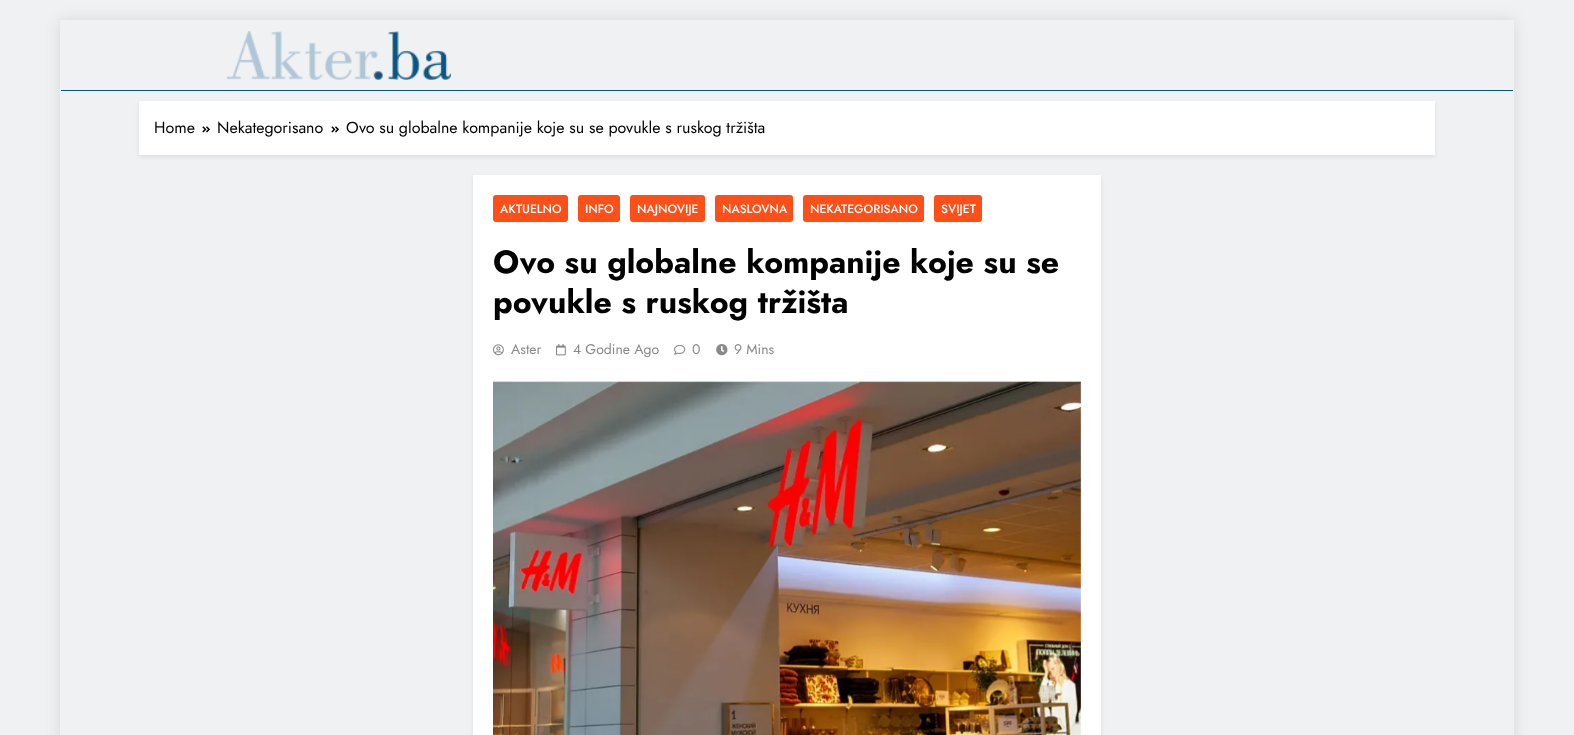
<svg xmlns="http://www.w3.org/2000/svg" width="1574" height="735">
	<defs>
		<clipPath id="clip1"><path d="M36 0H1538V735H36ZM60 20H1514V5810H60Z" clip-rule="evenodd" /></clipPath>
	</defs>
	<rect width="100%" height="100%" fill="#F0F1F2" />
	<g clip-path="url(#clip1)">
		<rect x="60" y="20" width="1454" height="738" fill="#000000" fill-opacity="0.1" filter="blur(7.5px)" />
	</g>
	<image x="227" y="31" width="224" height="49" href="assets/img1.png" />
	<rect x="61" y="90" width="1452" height="1" fill="#055385" />
	<rect x="139" y="103" width="1296" height="54" fill="#000000" fill-opacity="0.08" filter="blur(2px)" />
	<rect x="139" y="101" width="1296" height="54" fill="#FFFFFF" />
	<text x="154" y="133" font-family="Jost" font-size="16" fill="#000000">Home</text>
	<image x="202" y="126" width="8" height="7" href="assets/img2.png" />
	<text x="217" y="133" font-family="Jost" font-size="16" fill="#000000">Nekategorisano</text>
	<image x="331" y="126" width="8" height="7" href="assets/img2.png" />
	<text x="346" y="133" font-family="Jost" font-size="16" fill="#000000">Ovo su globalne kompanije koje su se povukle s ruskog tržišta</text>
	<rect x="473" y="177" width="628" height="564" fill="#000000" fill-opacity="0.08" filter="blur(2px)" />
	<rect x="473" y="175" width="628" height="560" fill="#FFFFFF" />
	<rect x="493" y="195" width="75" height="27" rx="3" fill="#FD4F18" />
	<text x="500" y="213" font-family="Jost" font-size="12" font-weight="500" fill="#FFFFFF">AKTUELNO</text>
	<rect x="578" y="195" width="42" height="27" rx="3" fill="#FD4F18" />
	<text x="585" y="213" font-family="Jost" font-size="12" font-weight="500" fill="#FFFFFF">INFO</text>
	<rect x="630" y="195" width="75" height="27" rx="3" fill="#FD4F18" />
	<text x="637" y="213" font-family="Jost" font-size="12" font-weight="500" fill="#FFFFFF">NAJNOVIJE</text>
	<rect x="715" y="195" width="78" height="27" rx="3" fill="#FD4F18" />
	<text x="722" y="213" font-family="Jost" font-size="12" font-weight="500" fill="#FFFFFF">NASLOVNA</text>
	<rect x="803" y="195" width="121" height="27" rx="3" fill="#FD4F18" />
	<text x="810" y="213" font-family="Jost" font-size="12" font-weight="500" fill="#FFFFFF">NEKATEGORISANO</text>
	<rect x="934" y="195" width="48" height="27" rx="3" fill="#FD4F18" />
	<text x="941" y="213" font-family="Jost" font-size="12" font-weight="500" fill="#FFFFFF">SVIJET</text>
	<g font-family="Jost" font-size="32" font-weight="700" fill="#000000">
		<text x="493" y="273">Ovo su globalne kompanije koje su se</text>
		<text x="493" y="313">povukle s ruskog tržišta</text>
	</g>
	<image x="493" y="344" width="11" height="12" href="assets/img3.png" />
	<text x="511" y="354" font-family="Jost" font-size="14" fill="#8A8A8C">Aster</text>
	<image x="556" y="344" width="10" height="12" href="assets/img4.png" />
	<text x="573" y="354" font-family="Jost" font-size="14" fill="#8A8A8C">4 Godine Ago</text>
	<image x="674" y="344" width="12" height="11" href="assets/img5.png" />
	<text x="692" y="354" font-family="Jost" font-size="14" fill="#8A8A8C">0</text>
	<image x="716" y="344" width="12" height="12" href="assets/img6.png" />
	<text x="734" y="354" font-family="Jost" font-size="14" fill="#8A8A8C">9 Mins</text>
	<image x="493" y="381" width="588" height="354" href="assets/img7.png" />
</svg>
